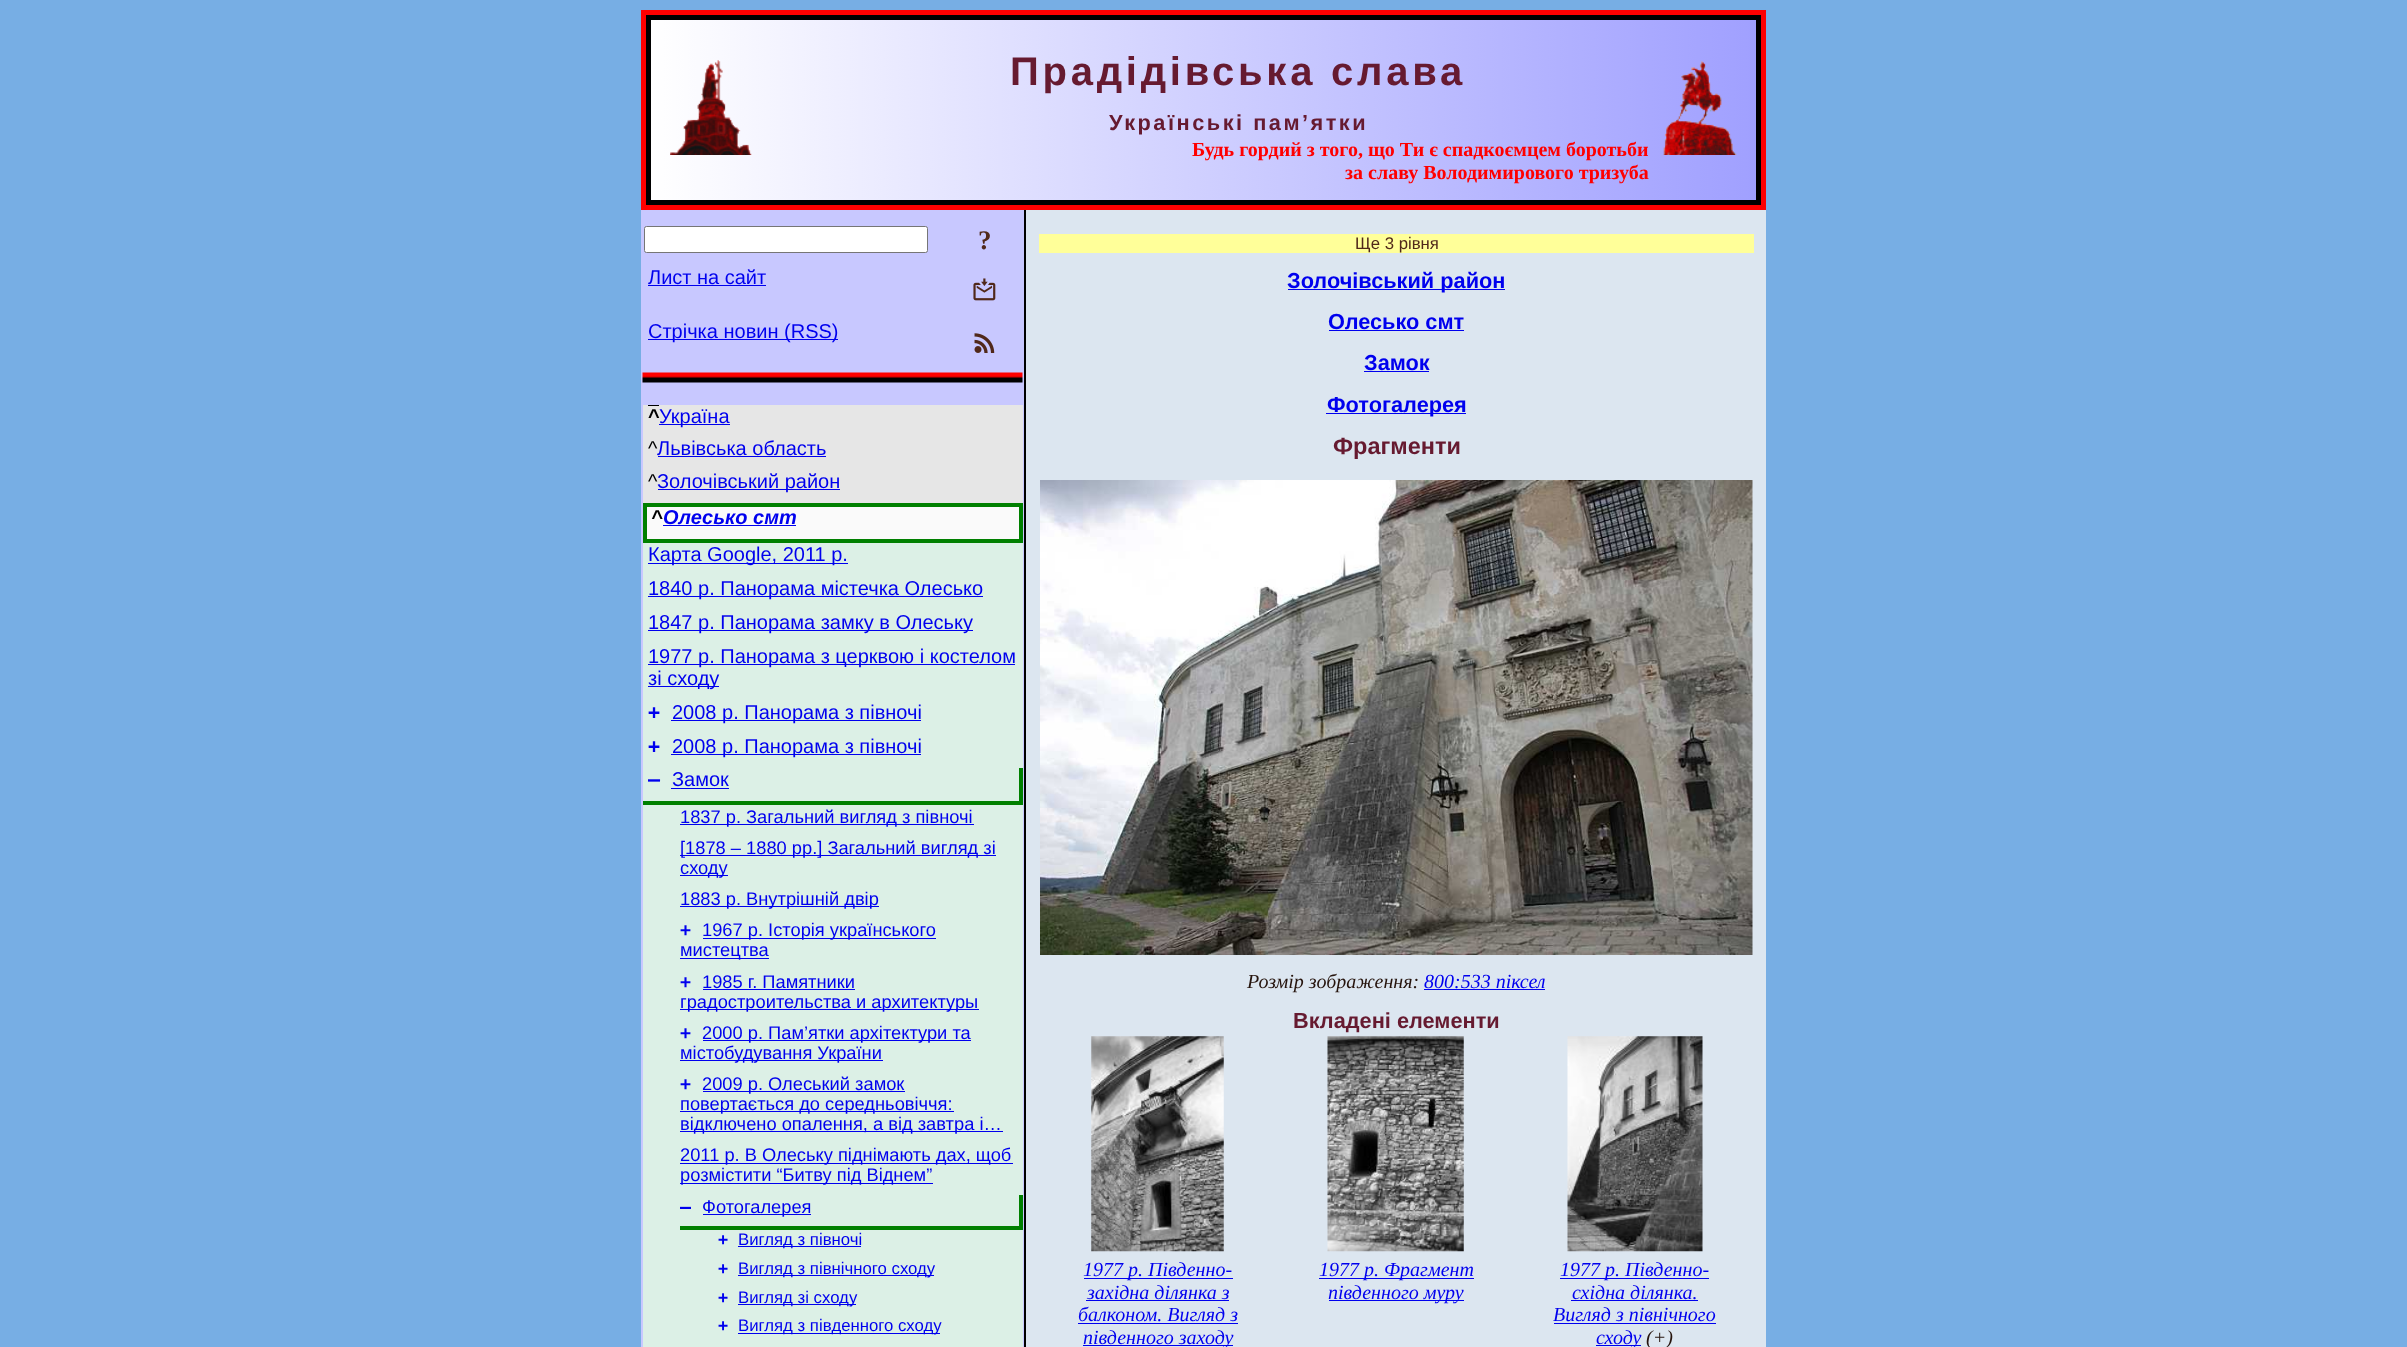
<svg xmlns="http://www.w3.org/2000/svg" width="2407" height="1347">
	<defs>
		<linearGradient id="g1" gradientUnits="userSpaceOnUse" x1="651" y1="110" x2="1756" y2="110"><stop offset="0" stop-color="#FFFFFF" /><stop offset="1" stop-color="#A0A0FF" /></linearGradient>
	</defs>
	<rect width="100%" height="100%" fill="#77AEE4" />
	<rect x="641" y="210" width="383" height="1137" fill="#C8C8FF" />
	<rect x="641" y="10" width="1125" height="200" fill="#FF0000" />
	<rect x="651" y="20" width="1105" height="180" fill="url(#g1)" />
	<rect x="648.5" y="17.5" width="1110" height="185" fill="none" stroke="#000000" stroke-width="5" />
	<image x="670" y="60" width="82" height="95" href="assets/img1.png" />
	<text x="1010" y="85" font-family="Liberation Sans" font-size="40" font-weight="700" letter-spacing="3.75" fill="#661A30">Прадідівська слава</text>
	<text x="1109" y="130" font-family="Liberation Sans" font-size="21.75" font-weight="700" letter-spacing="2.5" fill="#661A30">Українські пам’ятки</text>
	<g font-family="Liberation Serif" font-size="20" font-weight="700" fill="#FF0000">
		<text x="1192" y="156">Будь гордий з того, що Ти є спадкоємцем боротьби</text>
		<text x="1345" y="179">за славу Володимирового тризуба</text>
	</g>
	<image x="1663" y="61" width="74" height="94" href="assets/img2.png" />
	<rect x="1024" y="210" width="2" height="1137" fill="#000000" />
	<rect x="644.5" y="226.5" width="283" height="26" rx="2" fill="#FFFFFF" stroke="#767676" />
	<text x="978" y="249" font-family="Liberation Serif" font-size="27" font-weight="700" fill="#50281A">?</text>
	<text x="648" y="284" font-family="Liberation Sans" font-size="20" fill="#0000EE">Лист на сайт</text>
	<rect x="648" y="285" width="118" height="1" fill="#0000EE" />
	<image x="973" y="278" width="23" height="23" href="assets/img3.png" />
	<rect x="648" y="339" width="190" height="1" fill="#0000EE" />
	<text x="648" y="338" font-family="Liberation Sans" font-size="20" fill="#0000EE">Стрічка новин (RSS)</text>
	<image x="974" y="333" width="21" height="20" href="assets/img4.png" />
	<image x="642" y="372" width="381" height="11" href="assets/img5.png" />
	<rect x="643" y="405" width="380" height="98" fill="#E6E6E6" />
	<text x="648" y="423" font-family="Liberation Sans" font-size="20" font-weight="700" fill="#000000">^</text>
	<rect x="648" y="405" width="11" height="1" fill="#000000" />
	<rect x="659" y="424" width="71" height="1" fill="#0000EE" />
	<text x="659" y="423" font-family="Liberation Sans" font-size="20" fill="#0000EE">Україна</text>
	<text x="648" y="455" font-family="Liberation Sans" font-size="20" fill="#000000">^</text>
	<text x="657" y="455" font-family="Liberation Sans" font-size="20" fill="#0000EE">Львівська область</text>
	<rect x="658" y="456" width="168" height="1" fill="#0000EE" />
	<text x="648" y="488" font-family="Liberation Sans" font-size="20" fill="#000000">^</text>
	<rect x="658" y="489" width="182" height="1" fill="#0000EE" />
	<text x="657" y="488" font-family="Liberation Sans" font-size="20" fill="#0000EE">Золочівський район</text>
	<rect x="645" y="505" width="376" height="36" fill="#FAFAFA" stroke="#008000" stroke-width="4" />
	<text x="651" y="524" font-family="Liberation Sans" font-size="20" font-weight="700" font-style="italic" fill="#000000">^</text>
	<text x="663" y="524" font-family="Liberation Sans" font-size="20" font-weight="700" font-style="italic" fill="#0000EE">Олесько смт</text>
	<rect x="663" y="525" width="133" height="1" fill="#0000EE" />
	<rect x="643" y="543" width="380" height="804" fill="#DCF0E6" />
	<rect x="648" y="563" width="200" height="1" fill="#0000EE" />
	<text x="648" y="561" font-family="Liberation Sans" font-size="20" fill="#0000EE">Карта Google, 2011 р.</text>
	<rect x="648" y="596" width="335" height="1" fill="#0000EE" />
	<text x="648" y="595" font-family="Liberation Sans" font-size="20" fill="#0000EE">1840 р. Панорама містечка Олесько</text>
	<rect x="648" y="630" width="325" height="1" fill="#0000EE" />
	<text x="648" y="629" font-family="Liberation Sans" font-size="20" fill="#0000EE">1847 р. Панорама замку в Олеську</text>
	<rect x="648" y="664" width="367" height="1" fill="#0000EE" />
	<text x="648" y="663" font-family="Liberation Sans" font-size="20" fill="#0000EE">1977 р. Панорама з церквою і костелом</text>
	<rect x="648" y="686" width="71" height="1" fill="#0000EE" />
	<text x="648" y="685" font-family="Liberation Sans" font-size="20" fill="#0000EE">зі сходу</text>
	<text x="648" y="719" font-family="DejaVu Sans Mono" font-size="20" font-weight="700" fill="#0000EE">+</text>
	<rect x="671" y="720" width="250" height="1" fill="#0000EE" />
	<text x="672" y="719" font-family="Liberation Sans" font-size="20" fill="#0000EE">2008 р. Панорама з півночі</text>
	<text x="648" y="753" font-family="DejaVu Sans Mono" font-size="20" font-weight="700" fill="#0000EE">+</text>
	<rect x="671" y="754" width="250" height="1" fill="#0000EE" />
	<text x="672" y="753" font-family="Liberation Sans" font-size="20" fill="#0000EE">2008 р. Панорама з півночі</text>
	<rect x="1019" y="768" width="4" height="37" fill="#008000" />
	<rect x="643" y="801" width="380" height="4" fill="#008000" />
	<text x="648" y="786" font-family="DejaVu Sans Mono" font-size="20" font-weight="700" fill="#0000EE">–</text>
	<text x="672" y="786" font-family="Liberation Sans" font-size="20" fill="#0000EE">Замок</text>
	<rect x="671" y="788" width="58" height="1" fill="#0000EE" />
	<rect x="680" y="824" width="294" height="1" fill="#0000EE" />
	<text x="680" y="823" font-family="Liberation Sans" font-size="18.3" fill="#0000EE">1837 р. Загальний вигляд з півночі</text>
	<rect x="680" y="855" width="316" height="1" fill="#0000EE" />
	<text x="680" y="854" font-family="Liberation Sans" font-size="18.3" fill="#0000EE">[1878 – 1880 рр.] Загальний вигляд зі</text>
	<rect x="680" y="875" width="48" height="1" fill="#0000EE" />
	<text x="680" y="874" font-family="Liberation Sans" font-size="18.3" fill="#0000EE">сходу</text>
	<rect x="680" y="906" width="199" height="1" fill="#0000EE" />
	<text x="680" y="905" font-family="Liberation Sans" font-size="18.3" fill="#0000EE">1883 р. Внутрішній двір</text>
	<text x="680" y="936" font-family="DejaVu Sans Mono" font-size="18.3" font-weight="700" fill="#0000EE">+</text>
	<rect x="703" y="938" width="233" height="1" fill="#0000EE" />
	<text x="702" y="936" font-family="Liberation Sans" font-size="18.3" fill="#0000EE">1967 р. Історія українського</text>
	<rect x="680" y="958" width="89" height="1" fill="#0000EE" />
	<text x="680" y="956" font-family="Liberation Sans" font-size="18.3" fill="#0000EE">мистецтва</text>
	<text x="680" y="988" font-family="DejaVu Sans Mono" font-size="18.3" font-weight="700" fill="#0000EE">+</text>
	<text x="702" y="988" font-family="Liberation Sans" font-size="18.3" fill="#0000EE">1985 г. Памятники</text>
	<rect x="703" y="989" width="152" height="1" fill="#0000EE" />
	<rect x="680" y="1009" width="299" height="1" fill="#0000EE" />
	<text x="680" y="1008" font-family="Liberation Sans" font-size="18.3" fill="#0000EE">градостроительства и архитектуры</text>
	<text x="680" y="1039" font-family="DejaVu Sans Mono" font-size="18.3" font-weight="700" fill="#0000EE">+</text>
	<rect x="703" y="1040" width="268" height="1" fill="#0000EE" />
	<text x="702" y="1039" font-family="Liberation Sans" font-size="18.3" fill="#0000EE">2000 р. Пам’ятки архітектури та</text>
	<rect x="680" y="1060" width="203" height="1" fill="#0000EE" />
	<text x="680" y="1059" font-family="Liberation Sans" font-size="18.3" fill="#0000EE">містобудування України</text>
	<text x="680" y="1090" font-family="DejaVu Sans Mono" font-size="18.3" font-weight="700" fill="#0000EE">+</text>
	<rect x="703" y="1091" width="202" height="1" fill="#0000EE" />
	<text x="702" y="1090" font-family="Liberation Sans" font-size="18.3" fill="#0000EE">2009 р. Олеський замок</text>
	<rect x="680" y="1111" width="274" height="1" fill="#0000EE" />
	<text x="680" y="1110" font-family="Liberation Sans" font-size="18.3" fill="#0000EE">повертається до середньовіччя:</text>
	<rect x="680" y="1131" width="323" height="1" fill="#0000EE" />
	<text x="680" y="1130" font-family="Liberation Sans" font-size="18.3" fill="#0000EE">відключено опалення, а від завтра і…</text>
	<rect x="680" y="1163" width="333" height="1" fill="#0000EE" />
	<text x="680" y="1161" font-family="Liberation Sans" font-size="18.3" fill="#0000EE">2011 р. В Олеську піднімають дах, щоб</text>
	<rect x="680" y="1183" width="253" height="1" fill="#0000EE" />
	<text x="680" y="1181" font-family="Liberation Sans" font-size="18.3" fill="#0000EE">розмістити “Битву під Віднем”</text>
	<rect x="1019" y="1195" width="4" height="35" fill="#008000" />
	<rect x="680" y="1226" width="343" height="4" fill="#008000" />
	<text x="680" y="1213" font-family="DejaVu Sans Mono" font-size="18.3" font-weight="700" fill="#0000EE">–</text>
	<rect x="703" y="1214" width="108" height="1" fill="#0000EE" />
	<text x="702" y="1213" font-family="Liberation Sans" font-size="18.3" fill="#0000EE">Фотогалерея</text>
	<text x="718" y="1245" font-family="DejaVu Sans Mono" font-size="16.75" font-weight="700" fill="#0000EE">+</text>
	<rect x="738" y="1246" width="123" height="1" fill="#0000EE" />
	<text x="738" y="1245" font-family="Liberation Sans" font-size="16.75" fill="#0000EE">Вигляд з півночі</text>
	<text x="718" y="1274" font-family="DejaVu Sans Mono" font-size="16.75" font-weight="700" fill="#0000EE">+</text>
	<rect x="738" y="1275" width="196" height="1" fill="#0000EE" />
	<text x="738" y="1274" font-family="Liberation Sans" font-size="16.75" fill="#0000EE">Вигляд з північного сходу</text>
	<text x="718" y="1303" font-family="DejaVu Sans Mono" font-size="16.75" font-weight="700" fill="#0000EE">+</text>
	<rect x="738" y="1304" width="118" height="1" fill="#0000EE" />
	<text x="738" y="1303" font-family="Liberation Sans" font-size="16.75" fill="#0000EE">Вигляд зі сходу</text>
	<text x="718" y="1331" font-family="DejaVu Sans Mono" font-size="16.75" font-weight="700" fill="#0000EE">+</text>
	<rect x="738" y="1333" width="202" height="1" fill="#0000EE" />
	<text x="738" y="1331" font-family="Liberation Sans" font-size="16.75" fill="#0000EE">Вигляд з південного сходу</text>
	<rect x="1026" y="210" width="740" height="1137" fill="#DCE6F0" />
	<rect x="1039" y="234" width="715" height="19" fill="#FFFF99" />
	<text x="1355" y="249" font-family="Liberation Sans" font-size="16.75" fill="#50281A">Ще 3 рівня</text>
	<rect x="1288" y="289" width="217" height="1" fill="#0000EE" />
	<g font-family="Liberation Sans" font-size="21.75" font-weight="700" fill="#0000EE">
		<text x="1287" y="288">Золочівський район</text>
		<text x="1328" y="329">Олесько смт</text>
	</g>
	<rect x="1329" y="330" width="135" height="1" fill="#0000EE" />
	<text x="1364" y="370" font-family="Liberation Sans" font-size="21.75" font-weight="700" fill="#0000EE">Замок</text>
	<rect x="1364" y="371" width="65" height="1" fill="#0000EE" />
	<rect x="1326" y="413" width="140" height="1" fill="#0000EE" />
	<text x="1327" y="412" font-family="Liberation Sans" font-size="21.75" font-weight="700" fill="#0000EE">Фотогалерея</text>
	<text x="1333" y="454" font-family="Liberation Sans" font-size="23.5" font-weight="700" fill="#661A30">Фрагменти</text>
	<image x="1040" y="480" width="713" height="475" href="assets/img6.png" />
	<text x="1247" y="988" font-family="Liberation Serif" font-size="20" font-style="italic" fill="#26140D">Розмір зображення:</text>
	<text x="1424" y="988" font-family="Liberation Serif" font-size="20" font-style="italic" fill="#0000EE">800:533 піксел</text>
	<rect x="1424" y="989" width="121" height="1" fill="#0000EE" />
	<text x="1293" y="1028" font-family="Liberation Sans" font-size="21.75" font-weight="700" fill="#661A30">Вкладені елементи</text>
	<image x="1091" y="1036" width="133" height="216" href="assets/img7.png" />
	<rect x="1084" y="1278" width="149" height="1" fill="#0000EE" />
	<g font-family="Liberation Serif" font-size="20" font-style="italic" fill="#0000EE">
		<text x="1083" y="1276">1977 р. Південно-</text>
		<text x="1087" y="1299">західна ділянка з</text>
	</g>
	<rect x="1086" y="1300" width="143" height="1" fill="#0000EE" />
	<text x="1078" y="1321" font-family="Liberation Serif" font-size="20" font-style="italic" fill="#0000EE">балконом. Вигляд з</text>
	<rect x="1078" y="1323" width="160" height="1" fill="#0000EE" />
	<rect x="1083" y="1345" width="150" height="1" fill="#0000EE" />
	<text x="1083" y="1344" font-family="Liberation Serif" font-size="20" font-style="italic" fill="#0000EE">південного заходу</text>
	<image x="1327" y="1036" width="137" height="216" href="assets/img8.png" />
	<rect x="1319" y="1278" width="155" height="1" fill="#0000EE" />
	<text x="1319" y="1276" font-family="Liberation Serif" font-size="20" font-style="italic" fill="#0000EE">1977 р. Фрагмент</text>
	<rect x="1329" y="1300" width="135" height="1" fill="#0000EE" />
	<text x="1328" y="1299" font-family="Liberation Serif" font-size="20" font-style="italic" fill="#0000EE">південного муру</text>
	<image x="1567" y="1036" width="136" height="216" href="assets/img9.png" />
	<rect x="1560" y="1278" width="149" height="1" fill="#0000EE" />
	<g font-family="Liberation Serif" font-size="20" font-style="italic" fill="#0000EE">
		<text x="1560" y="1276">1977 р. Південно-</text>
		<text x="1572" y="1299">східна ділянка.</text>
	</g>
	<rect x="1571" y="1300" width="127" height="1" fill="#0000EE" />
	<text x="1553" y="1321" font-family="Liberation Serif" font-size="20" font-style="italic" fill="#0000EE">Вигляд з північного</text>
	<rect x="1554" y="1323" width="162" height="1" fill="#0000EE" />
	<rect x="1596" y="1345" width="45" height="1" fill="#0000EE" />
	<text x="1596" y="1344" font-family="Liberation Serif" font-size="20" font-style="italic" fill="#0000EE">сходу</text>
	<text x="1646" y="1344" font-family="Liberation Serif" font-size="20" font-style="italic" fill="#26140D">(+)</text>
</svg>
